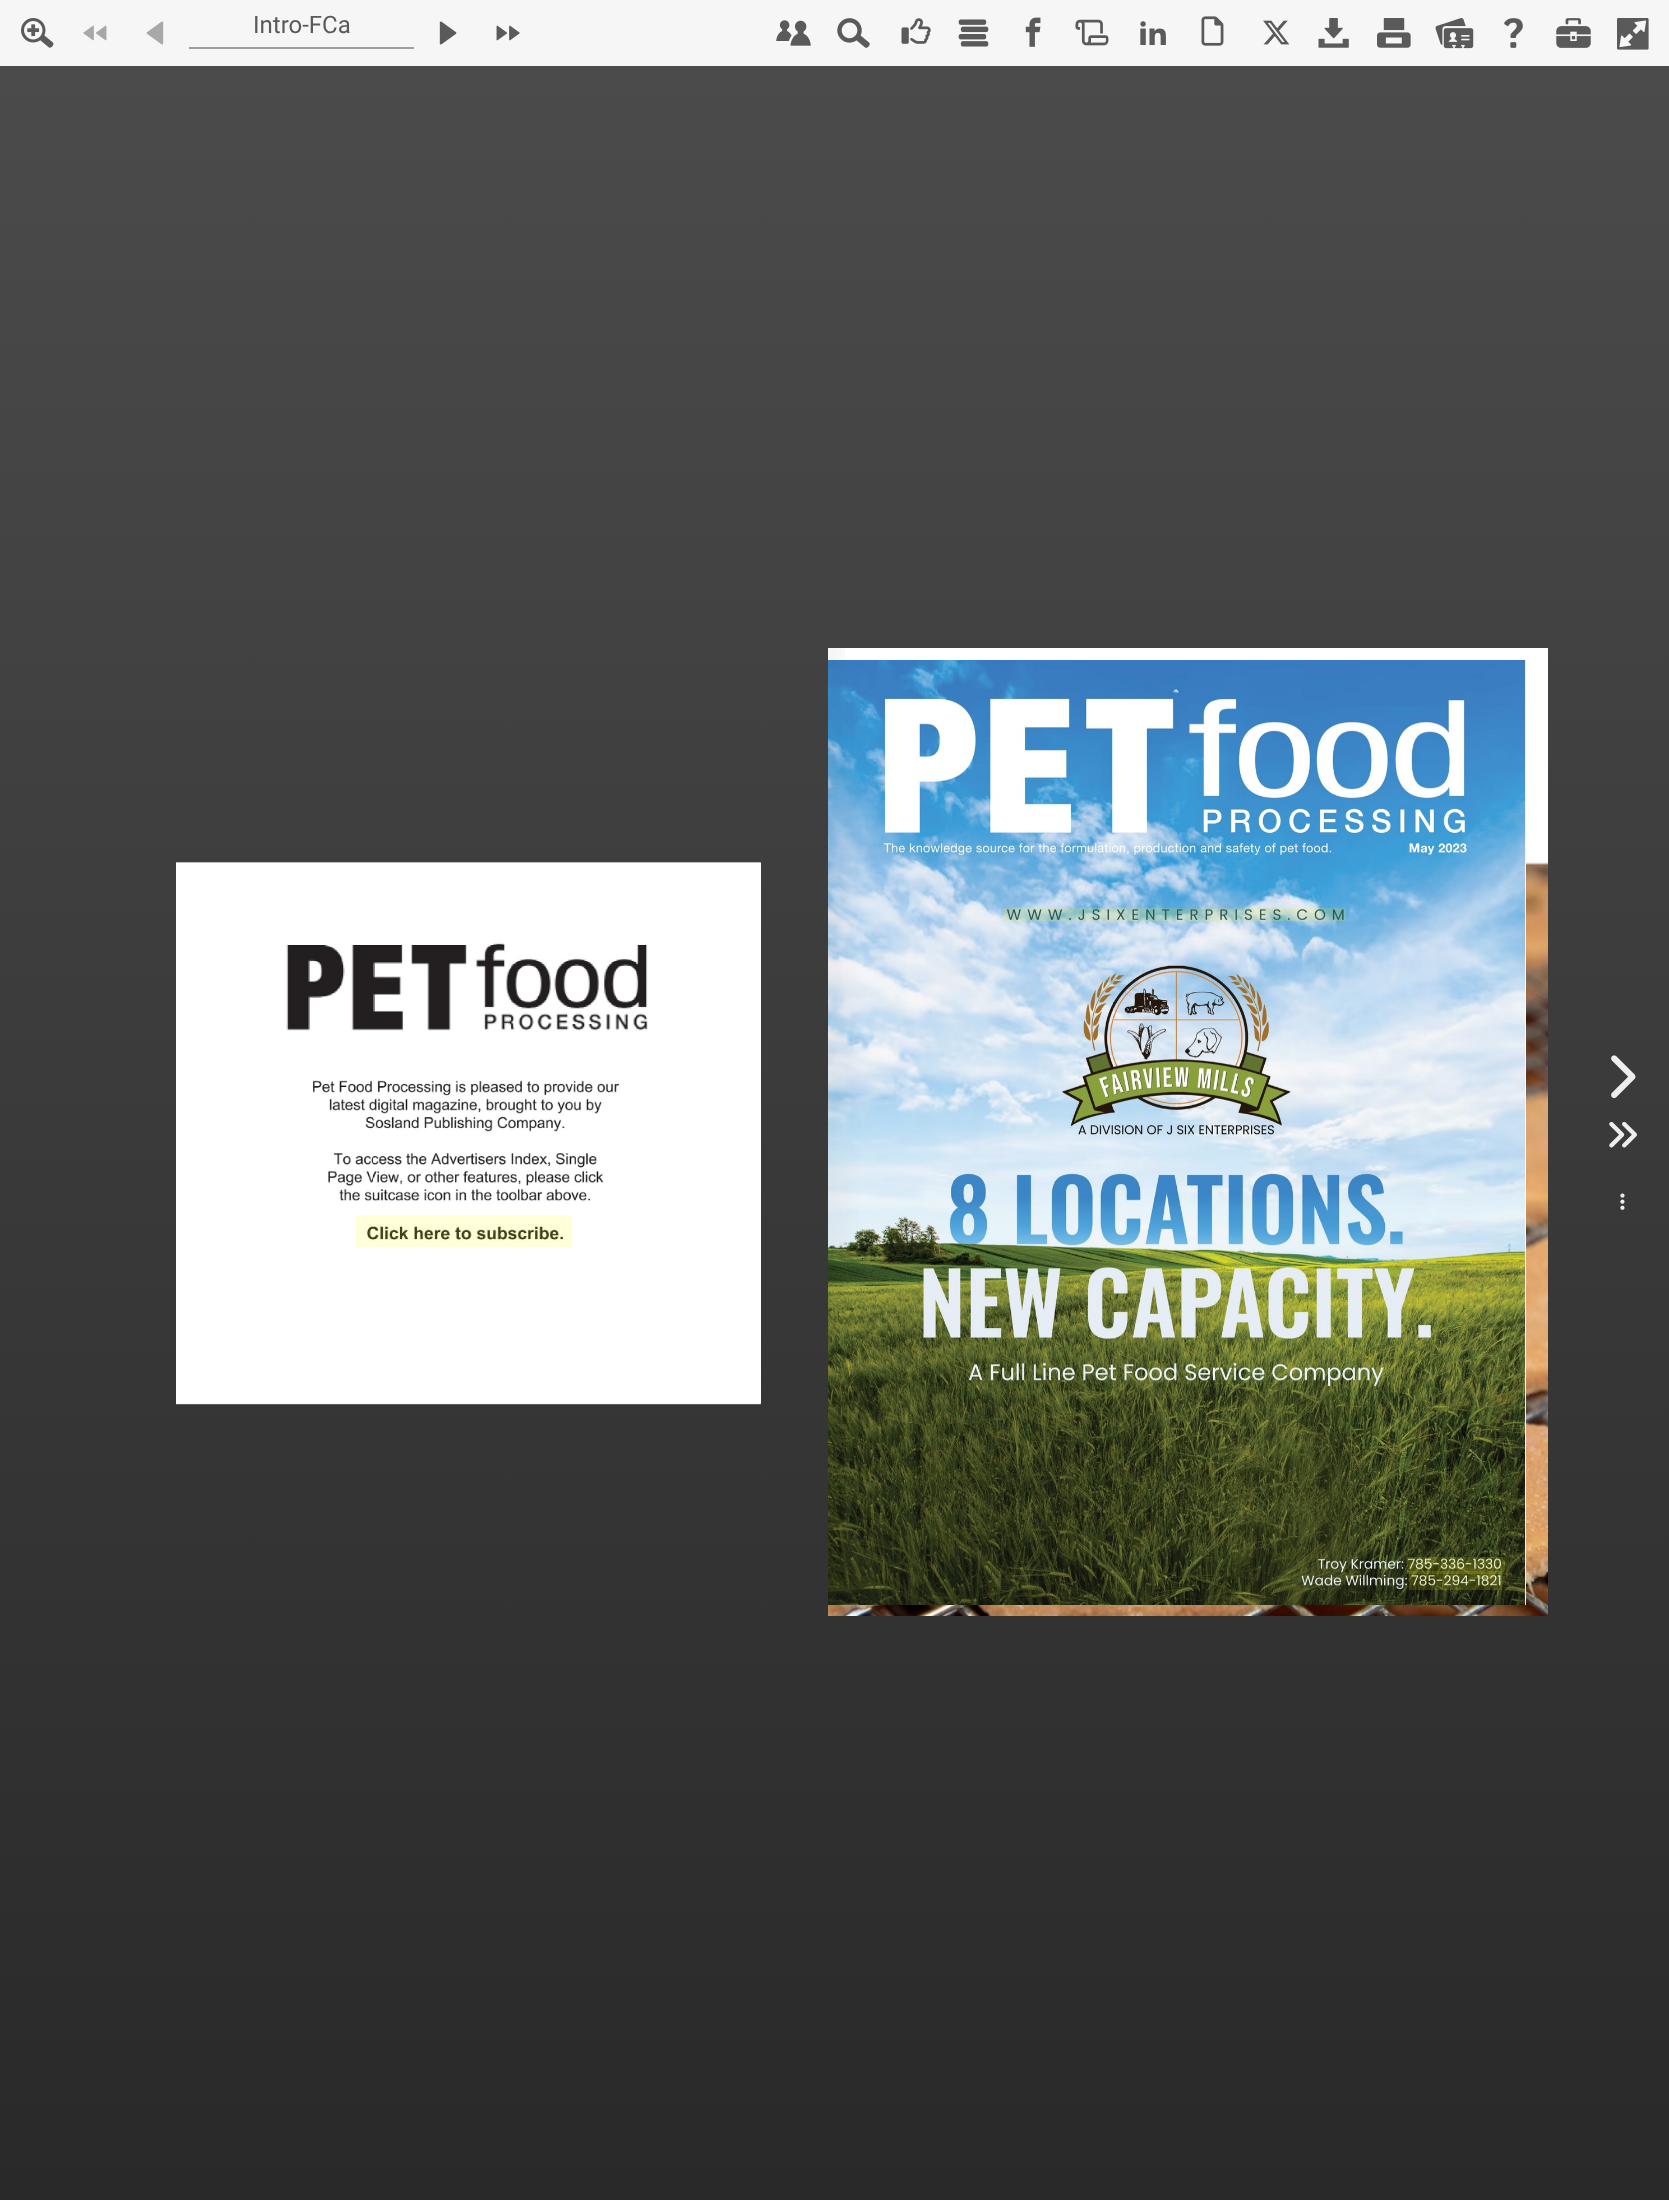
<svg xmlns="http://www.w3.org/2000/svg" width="1669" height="2200">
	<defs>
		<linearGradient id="g1" gradientUnits="userSpaceOnUse" x1="835" y1="0" x2="835" y2="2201"><stop offset="0" stop-color="#4C4C4C" /><stop offset="1" stop-color="#292929" /></linearGradient>
		<linearGradient id="g2" gradientUnits="userSpaceOnUse" x1="1548" y1="1133" x2="828" y2="1133"><stop offset="0.95" stop-color="#000000" stop-opacity="0" /><stop offset="1" stop-color="#000000" stop-opacity="0.04" /></linearGradient>
	</defs>
	<rect width="100%" height="100%" fill="#FFFFFF" />
	<rect x="0" y="66" width="1669" height="2134" fill="url(#g1)" />
	<rect x="0" y="0" width="1669" height="66" fill="#F6F6F6" />
	<image x="21" y="18" width="33" height="30" href="assets/img1.png" />
	<image x="83" y="25" width="24" height="16" href="assets/img2.png" />
	<image x="146" y="21" width="18" height="24" href="assets/img3.png" />
	<rect x="189" y="47" width="225" height="2" fill="#9E9E9E" />
	<text x="253" y="33" font-family="Roboto" font-size="24" fill="#5A5A5A">Intro-FCa</text>
	<image x="439" y="21" width="18" height="24" href="assets/img4.png" />
	<image x="496" y="25" width="24" height="16" href="assets/img5.png" />
	<image x="776" y="20" width="35" height="26" href="assets/img6.png" />
	<image x="837" y="18" width="33" height="30" href="assets/img7.png" />
	<image x="901" y="18" width="30" height="26" href="assets/img8.png" />
	<image x="958" y="19" width="31" height="28" href="assets/img9.png" />
	<image x="1025" y="17" width="16" height="30" href="assets/img10.png" />
	<image x="1075" y="19" width="34" height="27" href="assets/img11.png" />
	<image x="1140" y="21" width="26" height="24" href="assets/img12.png" />
	<image x="1201" y="16" width="23" height="30" href="assets/img13.png" />
	<image x="1263" y="20" width="27" height="25" href="assets/img14.png" />
	<image x="1318" y="18" width="31" height="30" href="assets/img15.png" />
	<image x="1377" y="18" width="34" height="30" href="assets/img16.png" />
	<image x="1435" y="18" width="39" height="31" href="assets/img17.png" />
	<image x="1504" y="18" width="19" height="30" href="assets/img18.png" />
	<image x="1556" y="18" width="35" height="30" href="assets/img19.png" />
	<image x="1617" y="18" width="32" height="32" href="assets/img20.png" />
	<rect x="828" y="648" width="720" height="35" fill="#FFFFFF" />
	<image x="828" y="683" width="720" height="933" href="assets/img21.png" />
	<rect x="828" y="648" width="17" height="968" fill="url(#g2)" />
	<image x="176" y="862" width="585" height="542" href="assets/img22.png" />
	<image x="176" y="862" width="585" height="543" href="assets/img23.png" />
	<rect x="356" y="1215" width="216" height="32" fill="#FFFF00" fill-opacity="0.15" />
	<image x="828" y="660" width="698" height="945" href="assets/img24.png" />
	<rect x="1004" y="908" width="342" height="13" fill="#FFFF00" fill-opacity="0.14" />
	<rect x="1409" y="1571" width="93" height="19" fill="#FFFF00" fill-opacity="0.14" />
	<rect x="1407" y="1557" width="98" height="17" fill="#FFFF00" fill-opacity="0.14" />
	<image x="1611" y="1055" width="25" height="43" href="assets/img25.png" />
	<image x="1609" y="1121" width="28" height="27" href="assets/img26.png" />
	<image x="1620" y="1193" width="5" height="17" href="assets/img27.png" />
</svg>
